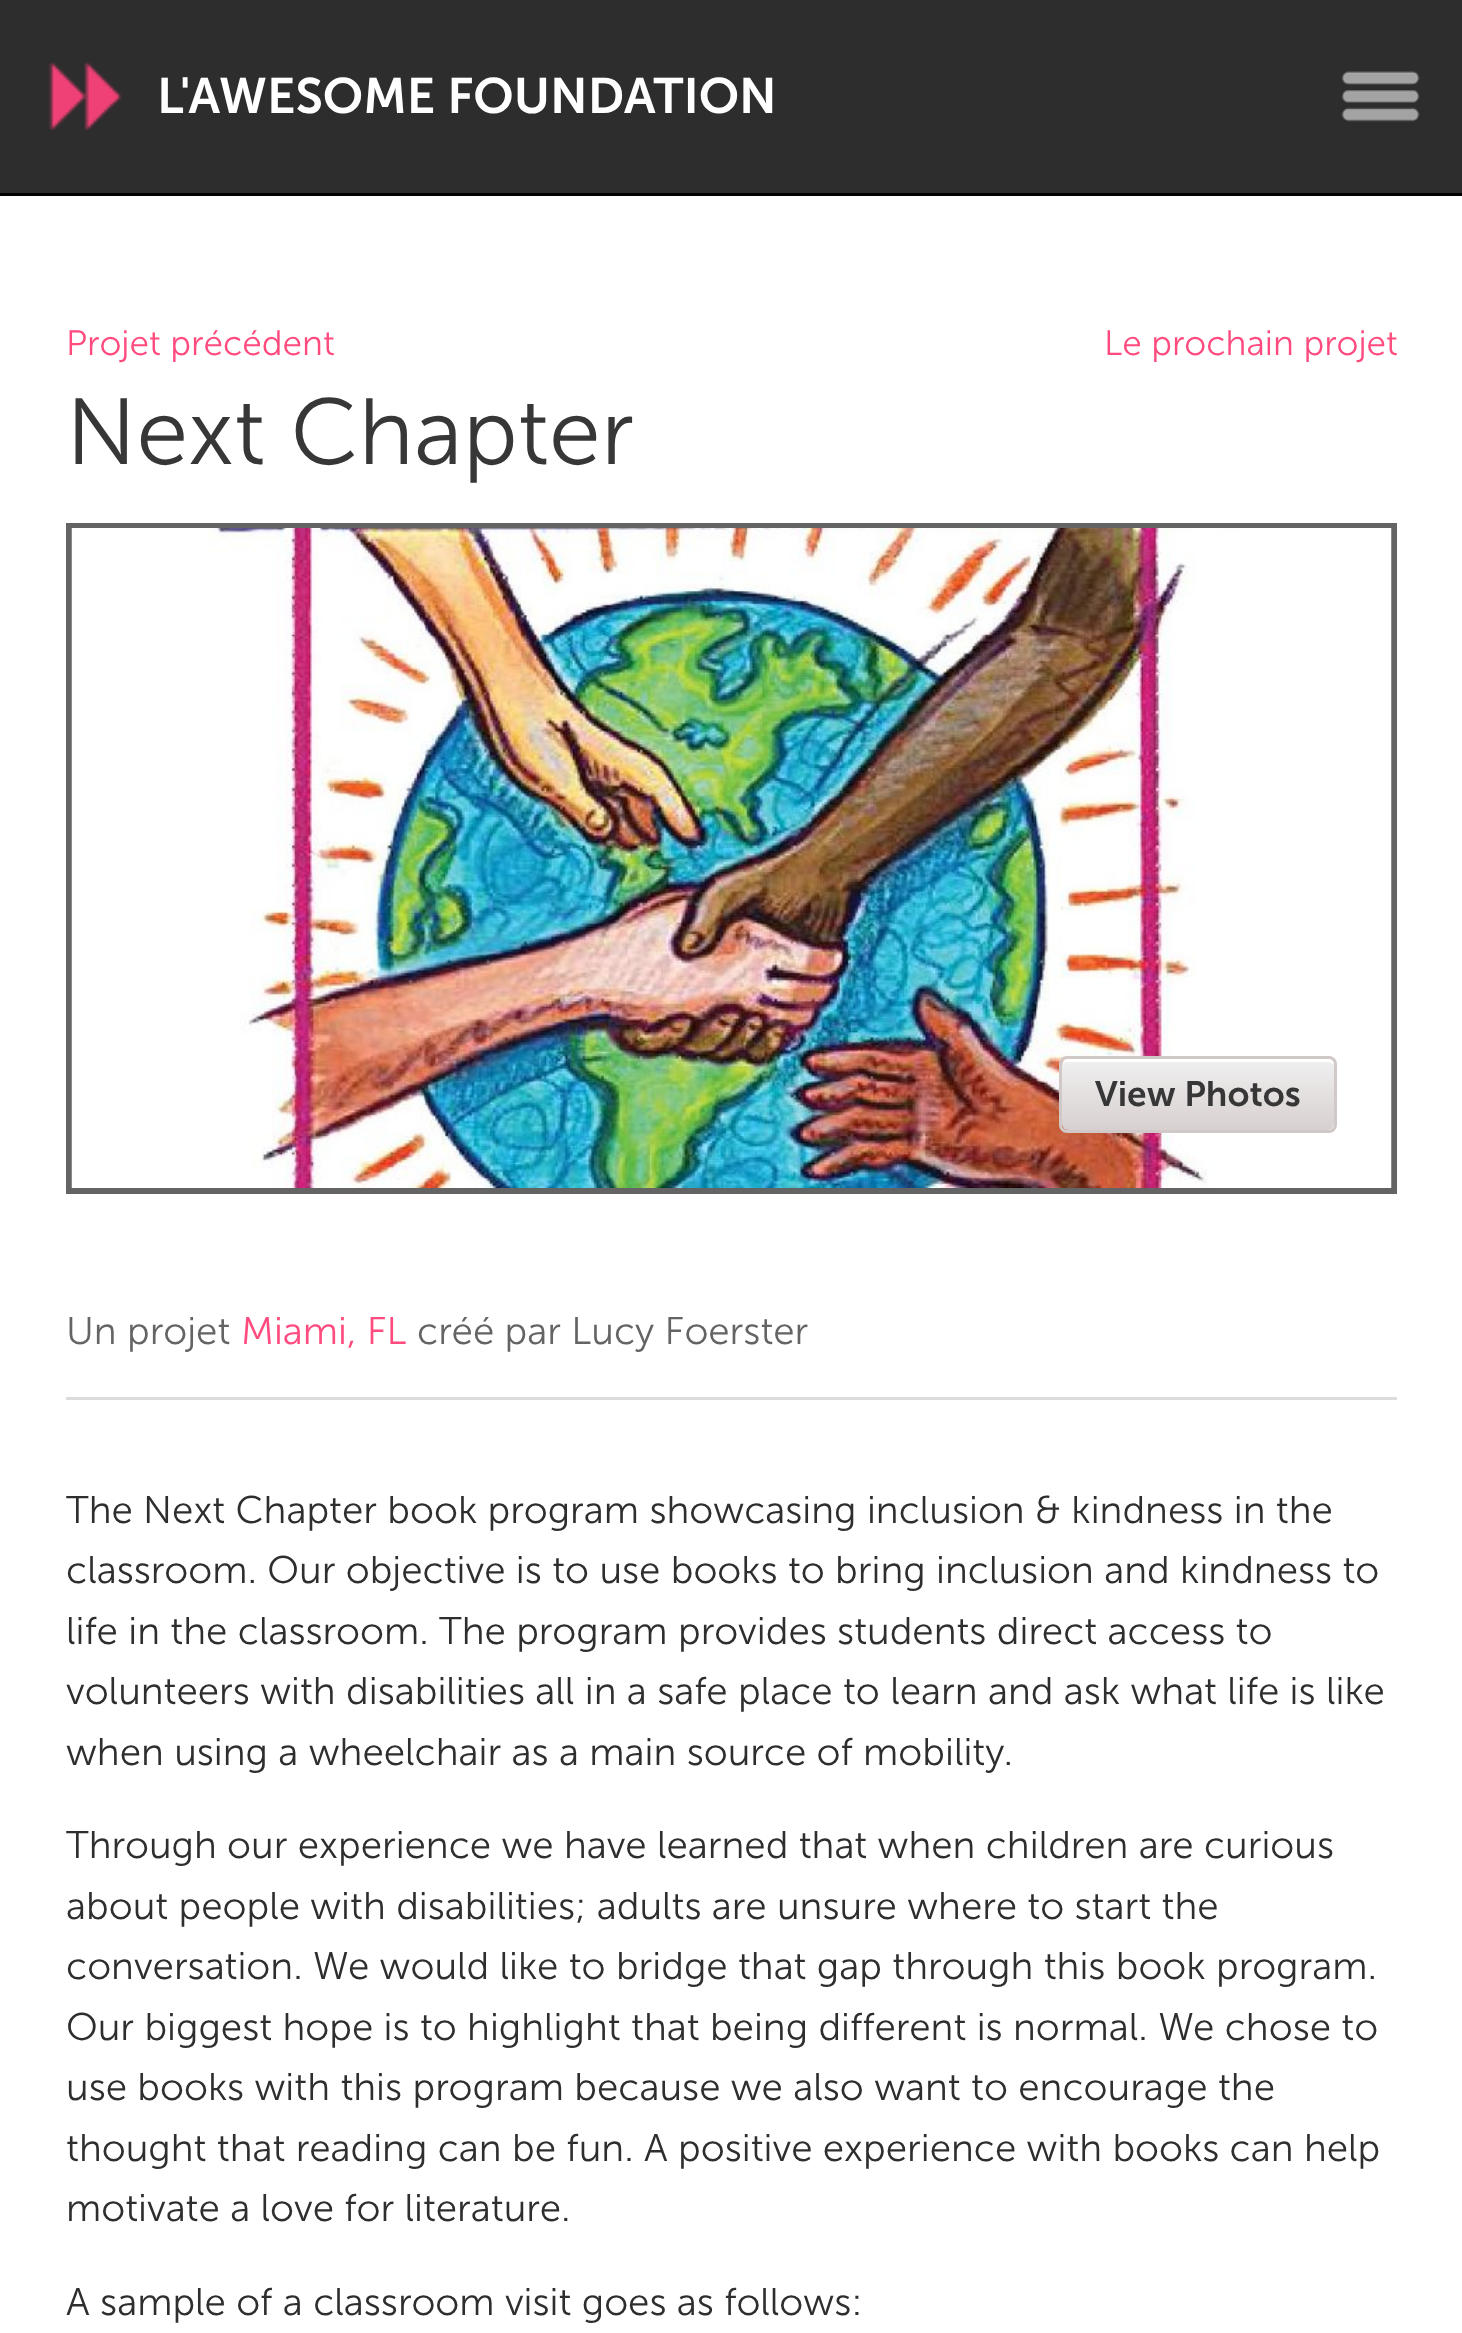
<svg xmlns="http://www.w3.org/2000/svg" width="1462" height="2333">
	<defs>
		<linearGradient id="g1" gradientUnits="userSpaceOnUse" x1="1198" y1="1059" x2="1198" y2="1130"><stop offset="0" stop-color="#F0F0F0" /><stop offset="1" stop-color="#D8D0D0" /></linearGradient>
	</defs>
	<rect width="100%" height="100%" fill="#FFFFFF" />
	<rect x="0" y="0" width="1462" height="193" fill="#2D2D2D" />
	<rect x="0" y="193" width="1462" height="3" fill="#000000" />
	<image x="48" y="62" width="74" height="69" href="assets/img1.png" />
	<text x="157" y="113" font-family="'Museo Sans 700'" font-size="49.5" font-weight="600" fill="#FFFFFF">L'AWESOME FOUNDATION</text>
	<image x="1341" y="71" width="79" height="51" href="assets/img2.png" />
	<g font-family="'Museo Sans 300'" font-size="35.25" font-weight="300" fill="#FF4B7E">
		<text x="66" y="355">Projet précédent</text>
		<text x="1104" y="355">Le prochain projet</text>
	</g>
	<text x="66" y="464" font-family="'Museo Sans 300'" font-size="93.5" font-weight="300" fill="#373737">Next Chapter</text>
	<rect x="66" y="523" width="1331" height="671" fill="#646464" />
	<image x="71" y="528" width="1321" height="660" href="assets/img3.png" />
	<rect x="1062" y="1059" width="272" height="71" rx="6" fill="url(#g1)" />
	<path d="M1067 1062H1328C1331 1062 1334 1064 1334 1067C1334 1064 1333 1060 1329 1059H1067C1063 1060 1062 1064 1062 1067C1062 1064 1064 1062 1067 1062Z" fill="#FFFFFF" />
	<rect x="1060.5" y="1057.5" width="275" height="74" rx="6.5" fill="none" stroke="#D1C8C8" stroke-width="3" />
	<text x="1095" y="1106" font-family="'Museo Sans 700'" font-size="35.25" font-weight="600" fill="#373737">View Photos</text>
	<rect x="66" y="1397" width="1331" height="3" fill="#DCDCDC" />
	<text x="66" y="1344" font-family="'Museo Sans 300'" font-size="38.5" font-weight="300" fill="#646464">Un projet</text>
	<text x="241" y="1344" font-family="'Museo Sans 300'" font-size="38.5" font-weight="300" fill="#FF4B7E">Miami, FL</text>
	<text x="417" y="1344" font-family="'Museo Sans 300'" font-size="38.5" font-weight="300" fill="#646464">créé par Lucy Foerster</text>
	<g font-family="'Museo Sans 300'" font-size="38.5" font-weight="300" fill="#2E2E2E">
		<text x="66" y="1523">The Next Chapter book program showcasing inclusion &amp; kindness in the</text>
		<text x="66" y="1583">classroom. Our objective is to use books to bring inclusion and kindness to</text>
		<text x="66" y="1644">life in the classroom. The program provides students direct access to</text>
		<text x="66" y="1704">volunteers with disabilities all in a safe place to learn and ask what life is like</text>
		<text x="66" y="1765">when using a wheelchair as a main source of mobility.</text>
		<text x="66" y="1858">Through our experience we have learned that when children are curious</text>
		<text x="66" y="1919">about people with disabilities; adults are unsure where to start the</text>
		<text x="66" y="1979">conversation. We would like to bridge that gap through this book program.</text>
		<text x="66" y="2040">Our biggest hope is to highlight that being different is normal. We chose to</text>
		<text x="66" y="2100">use books with this program because we also want to encourage the</text>
		<text x="66" y="2161">thought that reading can be fun. A positive experience with books can help</text>
		<text x="66" y="2221">motivate a love for literature.</text>
		<text x="66" y="2315">A sample of a classroom visit goes as follows:</text>
	</g>
</svg>
